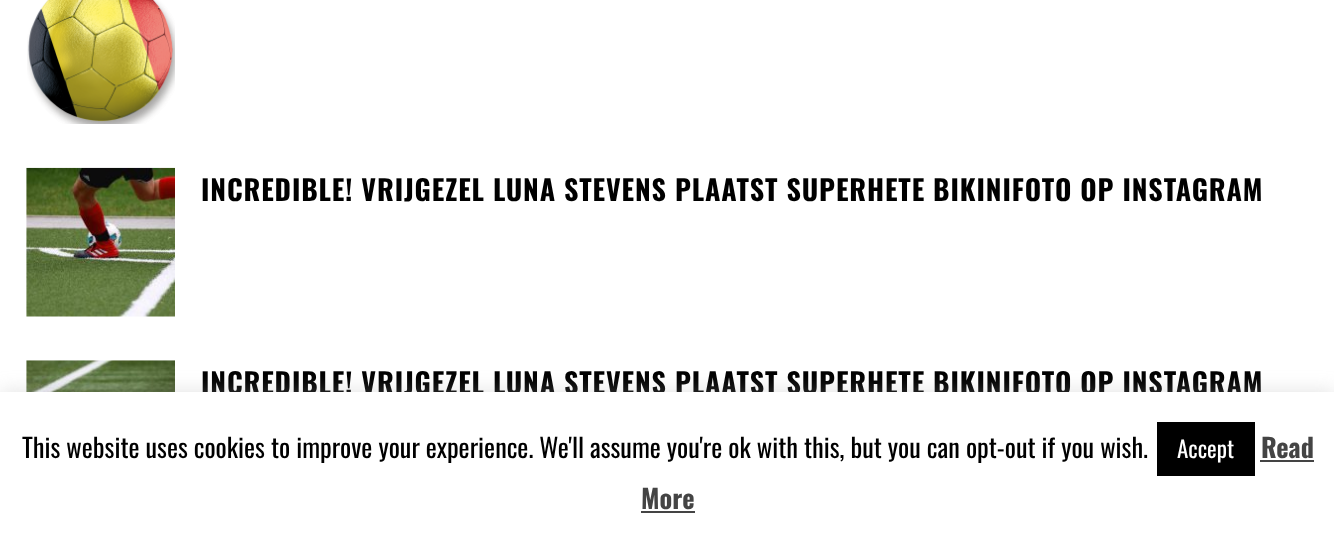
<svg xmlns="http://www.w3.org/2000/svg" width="1334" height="537">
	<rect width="100%" height="100%" fill="#FFFFFF" />
	<image x="27" y="0" width="148" height="124" href="assets/img1.png" />
	<image x="26" y="167" width="149" height="150" href="assets/img2.png" />
	<text x="201" y="201" font-family="Oswald" font-size="28" font-weight="700" letter-spacing="0.88" fill="#000000">INCREDIBLE! VRIJGEZEL LUNA STEVENS PLAATST SUPERHETE BIKINIFOTO OP INSTAGRAM</text>
	<image x="26" y="360" width="149" height="32" href="assets/img3.png" />
	<text x="201" y="394" font-family="Oswald" font-size="28" font-weight="700" letter-spacing="0.88" fill="#000000">INCREDIBLE! VRIJGEZEL LUNA STEVENS PLAATST SUPERHETE BIKINIFOTO OP INSTAGRAM</text>
	<rect x="0" y="390" width="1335" height="146" fill="#ACABAB" fill-opacity="0.3" filter="blur(9px)" />
	<rect x="0" y="392" width="1334" height="145" fill="#FFFFFF" />
	<text x="22" y="458" font-family="Oswald" font-size="26.25" fill="#000000">This website uses cookies to improve your experience. We'll assume you're ok with this, but you can opt-out if you wish.</text>
	<rect x="1157" y="422" width="98" height="54" fill="#000000" />
	<text x="1177" y="458" font-family="Oswald" font-size="23" fill="#FFFFFF">Accept</text>
	<text x="1261" y="458" font-family="Oswald" font-size="26.25" font-weight="700" fill="#444444">Read</text>
	<rect x="1260" y="460" width="54" height="2" fill="#444444" />
	<text x="641" y="509" font-family="Oswald" font-size="26.25" font-weight="700" fill="#444444">More</text>
	<rect x="641" y="511" width="54" height="2" fill="#444444" />
</svg>
